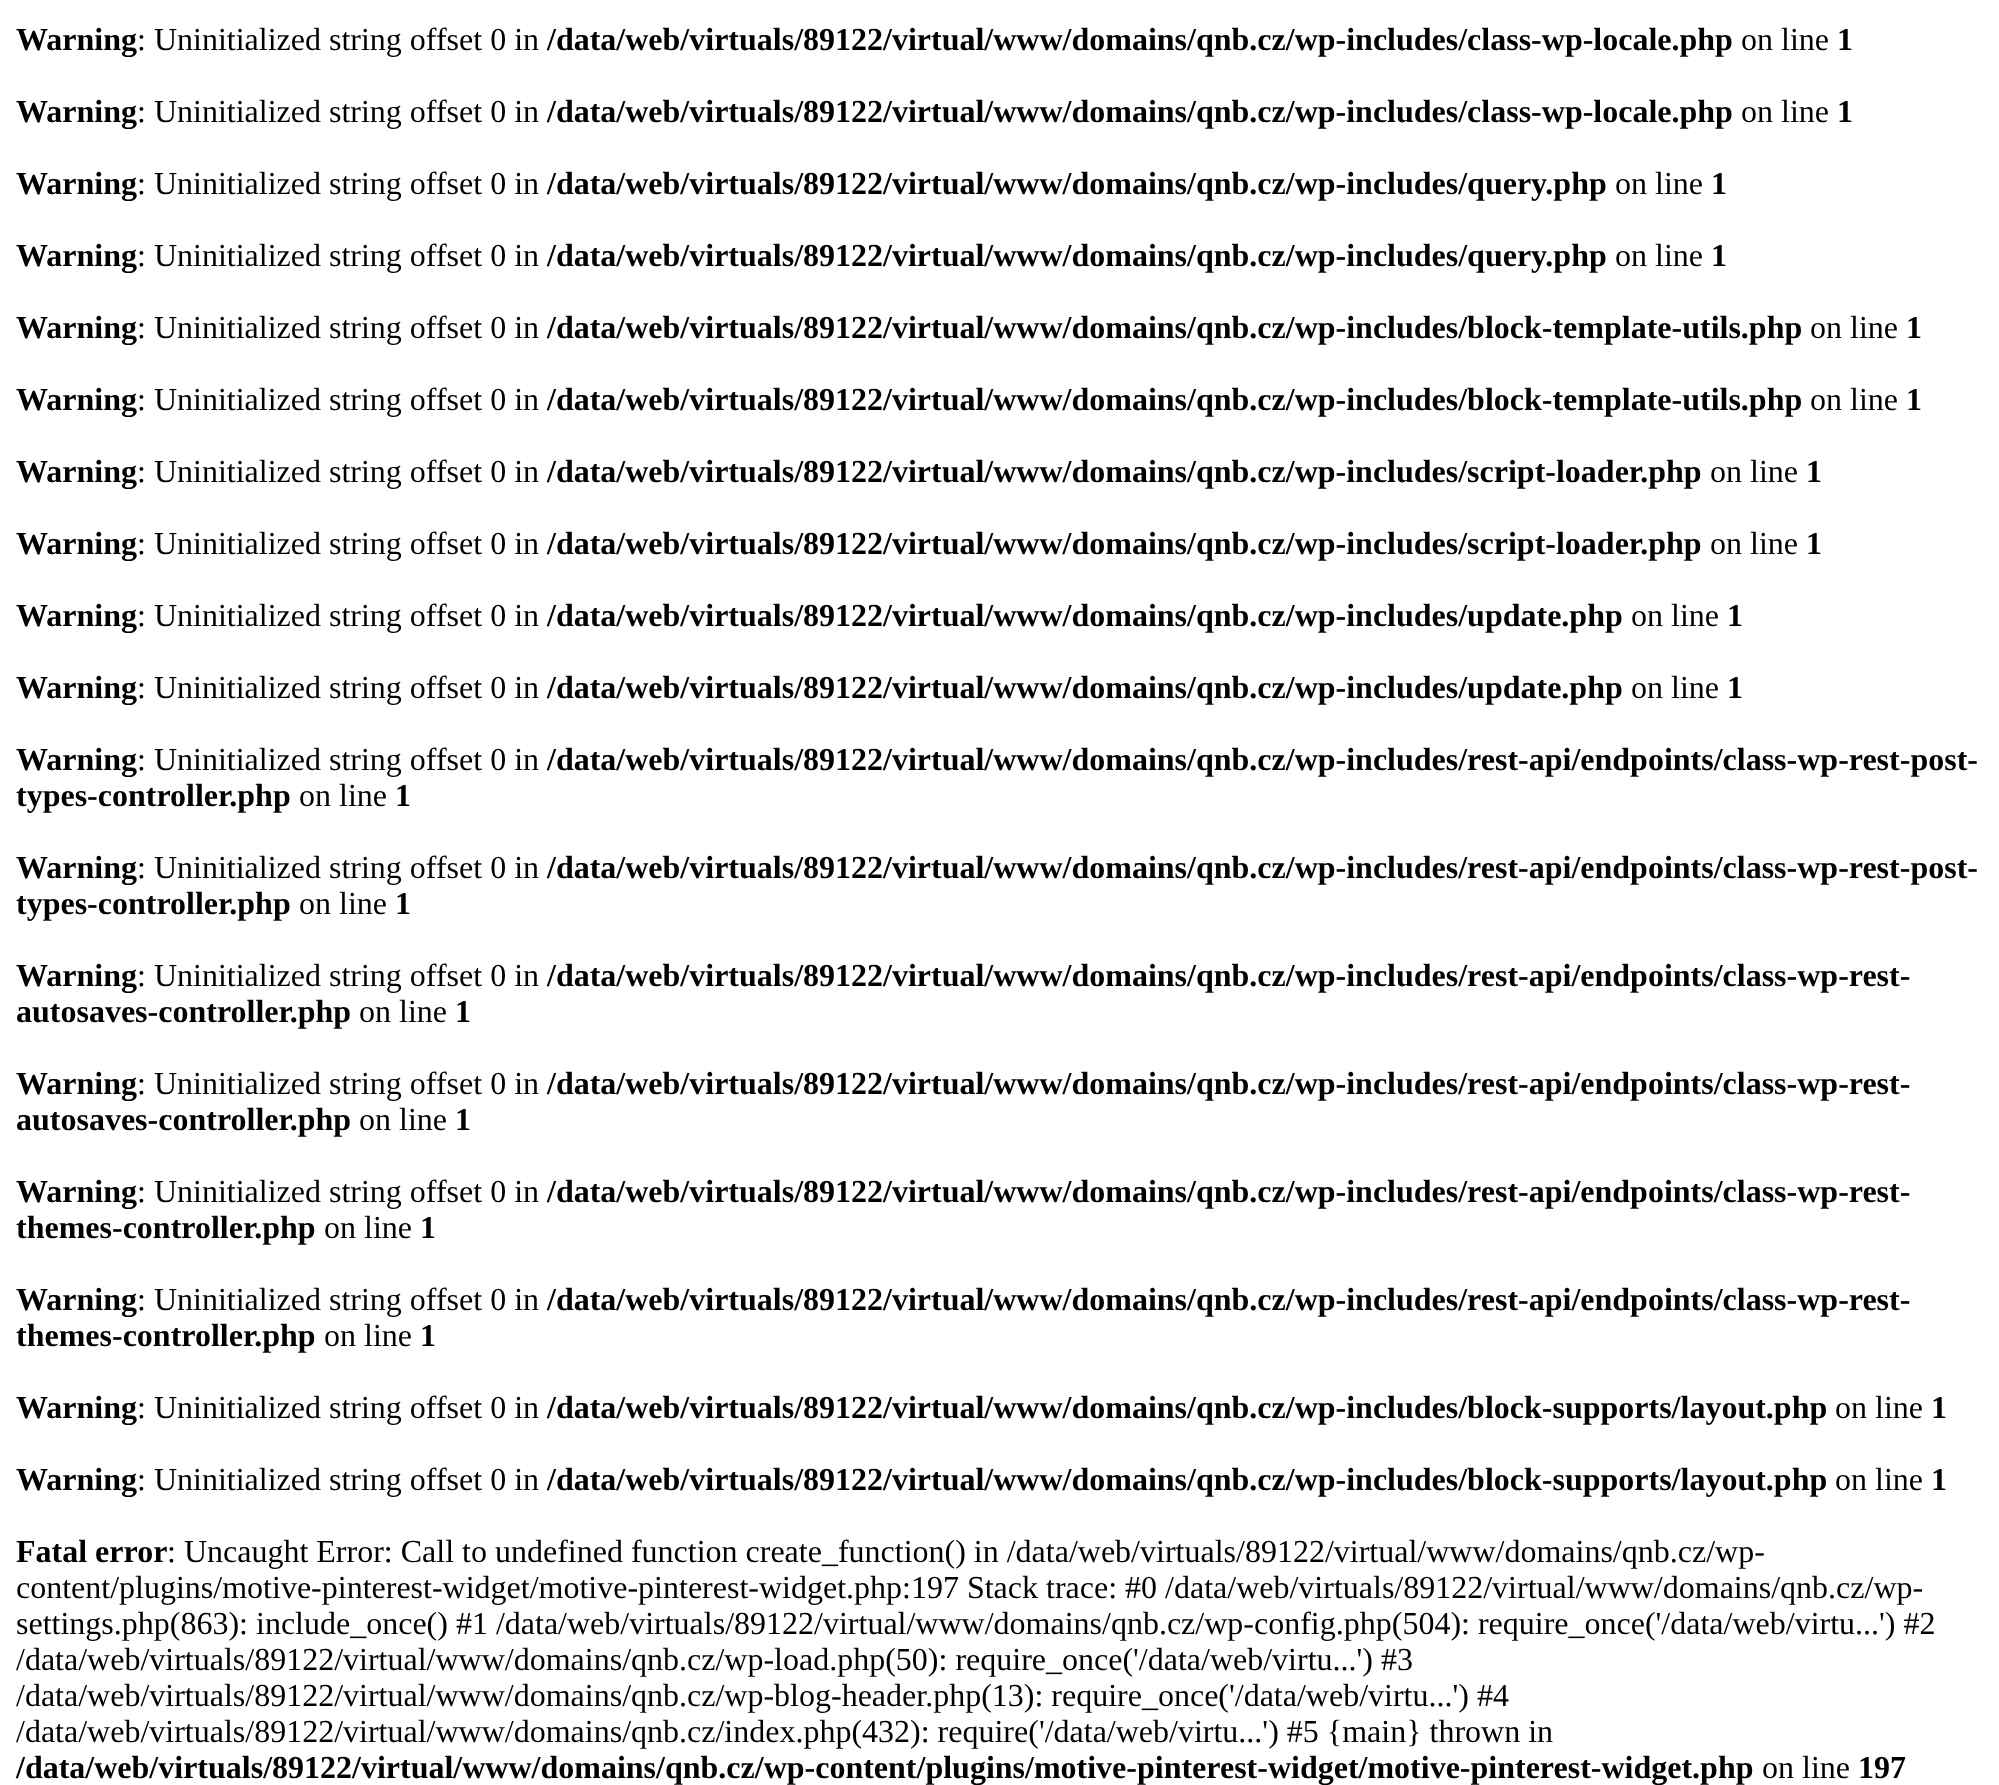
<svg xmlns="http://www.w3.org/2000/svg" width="1999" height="1785">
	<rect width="100%" height="100%" fill="#FFFFFF" />
	<text x="16" y="50" font-family="Liberation Serif" font-size="32" font-weight="700" fill="#000000">Warning</text>
	<text x="137" y="50" font-family="Liberation Serif" font-size="32" fill="#000000">: Uninitialized string offset 0 in</text>
	<text x="547" y="50" font-family="Liberation Serif" font-size="32" font-weight="700" fill="#000000">/data/web/virtuals/89122/virtual/www/domains/qnb.cz/wp-includes/class-wp-locale.php</text>
	<text x="1741" y="50" font-family="Liberation Serif" font-size="32" fill="#000000">on line</text>
	<g font-family="Liberation Serif" font-size="32" font-weight="700" fill="#000000">
		<text x="1837" y="50">1</text>
		<text x="16" y="122">Warning</text>
	</g>
	<text x="137" y="122" font-family="Liberation Serif" font-size="32" fill="#000000">: Uninitialized string offset 0 in</text>
	<text x="547" y="122" font-family="Liberation Serif" font-size="32" font-weight="700" fill="#000000">/data/web/virtuals/89122/virtual/www/domains/qnb.cz/wp-includes/class-wp-locale.php</text>
	<text x="1741" y="122" font-family="Liberation Serif" font-size="32" fill="#000000">on line</text>
	<g font-family="Liberation Serif" font-size="32" font-weight="700" fill="#000000">
		<text x="1837" y="122">1</text>
		<text x="16" y="194">Warning</text>
	</g>
	<text x="137" y="194" font-family="Liberation Serif" font-size="32" fill="#000000">: Uninitialized string offset 0 in</text>
	<text x="547" y="194" font-family="Liberation Serif" font-size="32" font-weight="700" fill="#000000">/data/web/virtuals/89122/virtual/www/domains/qnb.cz/wp-includes/query.php</text>
	<text x="1615" y="194" font-family="Liberation Serif" font-size="32" fill="#000000">on line</text>
	<g font-family="Liberation Serif" font-size="32" font-weight="700" fill="#000000">
		<text x="1711" y="194">1</text>
		<text x="16" y="266">Warning</text>
	</g>
	<text x="137" y="266" font-family="Liberation Serif" font-size="32" fill="#000000">: Uninitialized string offset 0 in</text>
	<text x="547" y="266" font-family="Liberation Serif" font-size="32" font-weight="700" fill="#000000">/data/web/virtuals/89122/virtual/www/domains/qnb.cz/wp-includes/query.php</text>
	<text x="1615" y="266" font-family="Liberation Serif" font-size="32" fill="#000000">on line</text>
	<g font-family="Liberation Serif" font-size="32" font-weight="700" fill="#000000">
		<text x="1711" y="266">1</text>
		<text x="16" y="338">Warning</text>
	</g>
	<text x="137" y="338" font-family="Liberation Serif" font-size="32" fill="#000000">: Uninitialized string offset 0 in</text>
	<text x="547" y="338" font-family="Liberation Serif" font-size="32" font-weight="700" fill="#000000">/data/web/virtuals/89122/virtual/www/domains/qnb.cz/wp-includes/block-template-utils.php</text>
	<text x="1810" y="338" font-family="Liberation Serif" font-size="32" fill="#000000">on line</text>
	<g font-family="Liberation Serif" font-size="32" font-weight="700" fill="#000000">
		<text x="1906" y="338">1</text>
		<text x="16" y="410">Warning</text>
	</g>
	<text x="137" y="410" font-family="Liberation Serif" font-size="32" fill="#000000">: Uninitialized string offset 0 in</text>
	<text x="547" y="410" font-family="Liberation Serif" font-size="32" font-weight="700" fill="#000000">/data/web/virtuals/89122/virtual/www/domains/qnb.cz/wp-includes/block-template-utils.php</text>
	<text x="1810" y="410" font-family="Liberation Serif" font-size="32" fill="#000000">on line</text>
	<g font-family="Liberation Serif" font-size="32" font-weight="700" fill="#000000">
		<text x="1906" y="410">1</text>
		<text x="16" y="482">Warning</text>
	</g>
	<text x="137" y="482" font-family="Liberation Serif" font-size="32" fill="#000000">: Uninitialized string offset 0 in</text>
	<text x="547" y="482" font-family="Liberation Serif" font-size="32" font-weight="700" fill="#000000">/data/web/virtuals/89122/virtual/www/domains/qnb.cz/wp-includes/script-loader.php</text>
	<text x="1710" y="482" font-family="Liberation Serif" font-size="32" fill="#000000">on line</text>
	<g font-family="Liberation Serif" font-size="32" font-weight="700" fill="#000000">
		<text x="1806" y="482">1</text>
		<text x="16" y="554">Warning</text>
	</g>
	<text x="137" y="554" font-family="Liberation Serif" font-size="32" fill="#000000">: Uninitialized string offset 0 in</text>
	<text x="547" y="554" font-family="Liberation Serif" font-size="32" font-weight="700" fill="#000000">/data/web/virtuals/89122/virtual/www/domains/qnb.cz/wp-includes/script-loader.php</text>
	<text x="1710" y="554" font-family="Liberation Serif" font-size="32" fill="#000000">on line</text>
	<g font-family="Liberation Serif" font-size="32" font-weight="700" fill="#000000">
		<text x="1806" y="554">1</text>
		<text x="16" y="626">Warning</text>
	</g>
	<text x="137" y="626" font-family="Liberation Serif" font-size="32" fill="#000000">: Uninitialized string offset 0 in</text>
	<text x="547" y="626" font-family="Liberation Serif" font-size="32" font-weight="700" fill="#000000">/data/web/virtuals/89122/virtual/www/domains/qnb.cz/wp-includes/update.php</text>
	<text x="1631" y="626" font-family="Liberation Serif" font-size="32" fill="#000000">on line</text>
	<g font-family="Liberation Serif" font-size="32" font-weight="700" fill="#000000">
		<text x="1727" y="626">1</text>
		<text x="16" y="698">Warning</text>
	</g>
	<text x="137" y="698" font-family="Liberation Serif" font-size="32" fill="#000000">: Uninitialized string offset 0 in</text>
	<text x="547" y="698" font-family="Liberation Serif" font-size="32" font-weight="700" fill="#000000">/data/web/virtuals/89122/virtual/www/domains/qnb.cz/wp-includes/update.php</text>
	<text x="1631" y="698" font-family="Liberation Serif" font-size="32" fill="#000000">on line</text>
	<g font-family="Liberation Serif" font-size="32" font-weight="700" fill="#000000">
		<text x="1727" y="698">1</text>
		<text x="16" y="770">Warning</text>
	</g>
	<text x="137" y="770" font-family="Liberation Serif" font-size="32" fill="#000000">: Uninitialized string offset 0 in</text>
	<g font-family="Liberation Serif" font-size="32" font-weight="700" fill="#000000">
		<text x="547" y="770">/data/web/virtuals/89122/virtual/www/domains/qnb.cz/wp-includes/rest-api/endpoints/class-wp-rest-post-</text>
		<text x="16" y="806">types-controller.php</text>
	</g>
	<text x="299" y="806" font-family="Liberation Serif" font-size="32" fill="#000000">on line</text>
	<g font-family="Liberation Serif" font-size="32" font-weight="700" fill="#000000">
		<text x="395" y="806">1</text>
		<text x="16" y="878">Warning</text>
	</g>
	<text x="137" y="878" font-family="Liberation Serif" font-size="32" fill="#000000">: Uninitialized string offset 0 in</text>
	<g font-family="Liberation Serif" font-size="32" font-weight="700" fill="#000000">
		<text x="547" y="878">/data/web/virtuals/89122/virtual/www/domains/qnb.cz/wp-includes/rest-api/endpoints/class-wp-rest-post-</text>
		<text x="16" y="914">types-controller.php</text>
	</g>
	<text x="299" y="914" font-family="Liberation Serif" font-size="32" fill="#000000">on line</text>
	<g font-family="Liberation Serif" font-size="32" font-weight="700" fill="#000000">
		<text x="395" y="914">1</text>
		<text x="16" y="986">Warning</text>
	</g>
	<text x="137" y="986" font-family="Liberation Serif" font-size="32" fill="#000000">: Uninitialized string offset 0 in</text>
	<g font-family="Liberation Serif" font-size="32" font-weight="700" fill="#000000">
		<text x="547" y="986">/data/web/virtuals/89122/virtual/www/domains/qnb.cz/wp-includes/rest-api/endpoints/class-wp-rest-</text>
		<text x="16" y="1022">autosaves-controller.php</text>
	</g>
	<text x="359" y="1022" font-family="Liberation Serif" font-size="32" fill="#000000">on line</text>
	<g font-family="Liberation Serif" font-size="32" font-weight="700" fill="#000000">
		<text x="455" y="1022">1</text>
		<text x="16" y="1094">Warning</text>
	</g>
	<text x="137" y="1094" font-family="Liberation Serif" font-size="32" fill="#000000">: Uninitialized string offset 0 in</text>
	<g font-family="Liberation Serif" font-size="32" font-weight="700" fill="#000000">
		<text x="547" y="1094">/data/web/virtuals/89122/virtual/www/domains/qnb.cz/wp-includes/rest-api/endpoints/class-wp-rest-</text>
		<text x="16" y="1130">autosaves-controller.php</text>
	</g>
	<text x="359" y="1130" font-family="Liberation Serif" font-size="32" fill="#000000">on line</text>
	<g font-family="Liberation Serif" font-size="32" font-weight="700" fill="#000000">
		<text x="455" y="1130">1</text>
		<text x="16" y="1202">Warning</text>
	</g>
	<text x="137" y="1202" font-family="Liberation Serif" font-size="32" fill="#000000">: Uninitialized string offset 0 in</text>
	<g font-family="Liberation Serif" font-size="32" font-weight="700" fill="#000000">
		<text x="547" y="1202">/data/web/virtuals/89122/virtual/www/domains/qnb.cz/wp-includes/rest-api/endpoints/class-wp-rest-</text>
		<text x="16" y="1238">themes-controller.php</text>
	</g>
	<text x="324" y="1238" font-family="Liberation Serif" font-size="32" fill="#000000">on line</text>
	<g font-family="Liberation Serif" font-size="32" font-weight="700" fill="#000000">
		<text x="420" y="1238">1</text>
		<text x="16" y="1310">Warning</text>
	</g>
	<text x="137" y="1310" font-family="Liberation Serif" font-size="32" fill="#000000">: Uninitialized string offset 0 in</text>
	<g font-family="Liberation Serif" font-size="32" font-weight="700" fill="#000000">
		<text x="547" y="1310">/data/web/virtuals/89122/virtual/www/domains/qnb.cz/wp-includes/rest-api/endpoints/class-wp-rest-</text>
		<text x="16" y="1346">themes-controller.php</text>
	</g>
	<text x="324" y="1346" font-family="Liberation Serif" font-size="32" fill="#000000">on line</text>
	<g font-family="Liberation Serif" font-size="32" font-weight="700" fill="#000000">
		<text x="420" y="1346">1</text>
		<text x="16" y="1418">Warning</text>
	</g>
	<text x="137" y="1418" font-family="Liberation Serif" font-size="32" fill="#000000">: Uninitialized string offset 0 in</text>
	<text x="547" y="1418" font-family="Liberation Serif" font-size="32" font-weight="700" fill="#000000">/data/web/virtuals/89122/virtual/www/domains/qnb.cz/wp-includes/block-supports/layout.php</text>
	<text x="1835" y="1418" font-family="Liberation Serif" font-size="32" fill="#000000">on line</text>
	<g font-family="Liberation Serif" font-size="32" font-weight="700" fill="#000000">
		<text x="1931" y="1418">1</text>
		<text x="16" y="1490">Warning</text>
	</g>
	<text x="137" y="1490" font-family="Liberation Serif" font-size="32" fill="#000000">: Uninitialized string offset 0 in</text>
	<text x="547" y="1490" font-family="Liberation Serif" font-size="32" font-weight="700" fill="#000000">/data/web/virtuals/89122/virtual/www/domains/qnb.cz/wp-includes/block-supports/layout.php</text>
	<text x="1835" y="1490" font-family="Liberation Serif" font-size="32" fill="#000000">on line</text>
	<g font-family="Liberation Serif" font-size="32" font-weight="700" fill="#000000">
		<text x="1931" y="1490">1</text>
		<text x="16" y="1562">Fatal error</text>
	</g>
	<g font-family="Liberation Serif" font-size="32" fill="#000000">
		<text x="167" y="1562">: Uncaught Error: Call to undefined function create_function() in /data/web/virtuals/89122/virtual/www/domains/qnb.cz/wp-</text>
		<text x="16" y="1598">content/plugins/motive-pinterest-widget/motive-pinterest-widget.php:197 Stack trace: #0 /data/web/virtuals/89122/virtual/www/domains/qnb.cz/wp-</text>
		<text x="16" y="1634">settings.php(863): include_once() #1 /data/web/virtuals/89122/virtual/www/domains/qnb.cz/wp-config.php(504): require_once('/data/web/virtu...') #2</text>
		<text x="16" y="1670">/data/web/virtuals/89122/virtual/www/domains/qnb.cz/wp-load.php(50): require_once('/data/web/virtu...') #3</text>
		<text x="16" y="1706">/data/web/virtuals/89122/virtual/www/domains/qnb.cz/wp-blog-header.php(13): require_once('/data/web/virtu...') #4</text>
		<text x="16" y="1742">/data/web/virtuals/89122/virtual/www/domains/qnb.cz/index.php(432): require('/data/web/virtu...') #5 {main} thrown in</text>
	</g>
	<text x="16" y="1778" font-family="Liberation Serif" font-size="32" font-weight="700" fill="#000000">/data/web/virtuals/89122/virtual/www/domains/qnb.cz/wp-content/plugins/motive-pinterest-widget/motive-pinterest-widget.php</text>
	<text x="1762" y="1778" font-family="Liberation Serif" font-size="32" fill="#000000">on line</text>
	<text x="1858" y="1778" font-family="Liberation Serif" font-size="32" font-weight="700" fill="#000000">197</text>
</svg>
